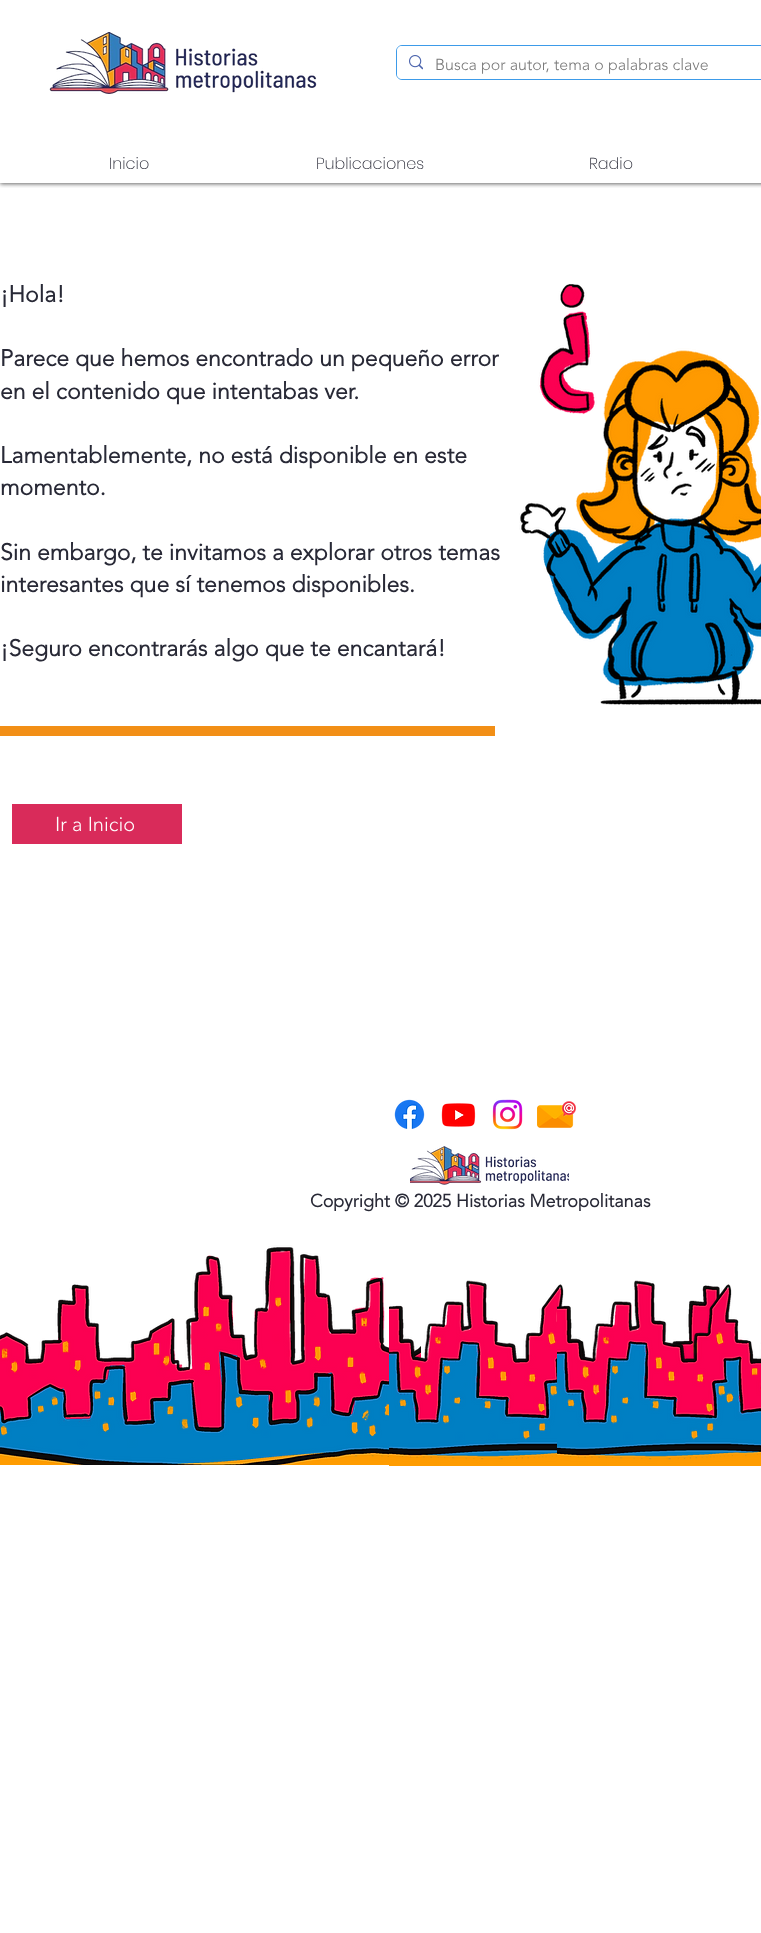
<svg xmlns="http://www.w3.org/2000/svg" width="761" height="1933">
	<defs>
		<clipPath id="clip1"><rect x="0" y="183" width="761" height="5" /></clipPath>
	</defs>
	<rect width="100%" height="100%" fill="#FFFFFF" />
	<g clip-path="url(#clip1)">
		<rect x="0" y="1" width="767" height="183" fill="#000000" fill-opacity="0.6" filter="blur(2px)" />
	</g>
	<image x="49" y="32" width="268" height="62" href="assets/img1.png" />
	<rect x="396.5" y="45.5" width="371" height="34" rx="5.5" fill="none" stroke="#3D9BE9" />
	<rect x="397" y="46" width="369" height="33" rx="5" fill="#FFFFFF" />
	<image x="409" y="55" width="14" height="15" href="assets/img2.png" />
	<text x="435" y="70" font-family="'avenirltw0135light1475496'" font-size="16" font-weight="300" fill="#787878">Busca por autor, tema o palabras clave</text>
	<g font-family="Poppins" font-size="16" font-weight="200" fill="#282936">
		<text x="109" y="169">Inicio</text>
		<text x="316" y="169">Publicaciones</text>
		<text x="589" y="169">Radio</text>
	</g>
	<g font-family="'avenirltw0135light1475496'" font-size="23" font-weight="700" fill="#282936">
		<text x="0" y="302">¡Hola!</text>
		<text x="0" y="366">Parece que hemos encontrado un pequeño error</text>
		<text x="0" y="399">en el contenido que intentabas ver.</text>
		<text x="0" y="463">Lamentablemente, no está disponible en este</text>
		<text x="0" y="495">momento.</text>
		<text x="0" y="560">Sin embargo, te invitamos a explorar otros temas</text>
		<text x="0" y="592">interesantes que sí tenemos disponibles.</text>
		<text x="0" y="656">¡Seguro encontrarás algo que te encantará!</text>
	</g>
	<image x="519" y="284" width="242" height="421" href="assets/img3.png" />
	<rect x="0" y="726" width="495" height="10" fill="#F28F16" />
	<rect x="12" y="804" width="170" height="40" fill="#D92B5A" />
	<text x="55" y="831" font-family="'avenirltw0135light1475496'" font-size="20" font-weight="300" fill="#FFFFFF">Ir a Inicio</text>
	<image x="394" y="1099" width="31" height="30" href="assets/img4.png" />
	<image x="441" y="1103" width="35" height="24" href="assets/img5.png" />
	<image x="492" y="1099" width="31" height="31" href="assets/img6.png" />
	<image x="537" y="1101" width="39" height="27" href="assets/img7.png" />
	<image x="410" y="1146" width="159" height="39" href="assets/img8.png" />
	<text x="310" y="1207" font-family="'avenirltw0135light1475496'" font-size="18" font-weight="700" fill="#282936">Copyright © 2025 Historias Metropolitanas</text>
	<image x="0" y="1245" width="421" height="220" href="assets/img9.png" />
	<image x="389" y="1280" width="372" height="186" href="assets/img10.png" />
	<image x="557" y="1280" width="204" height="186" href="assets/img11.png" />
</svg>
